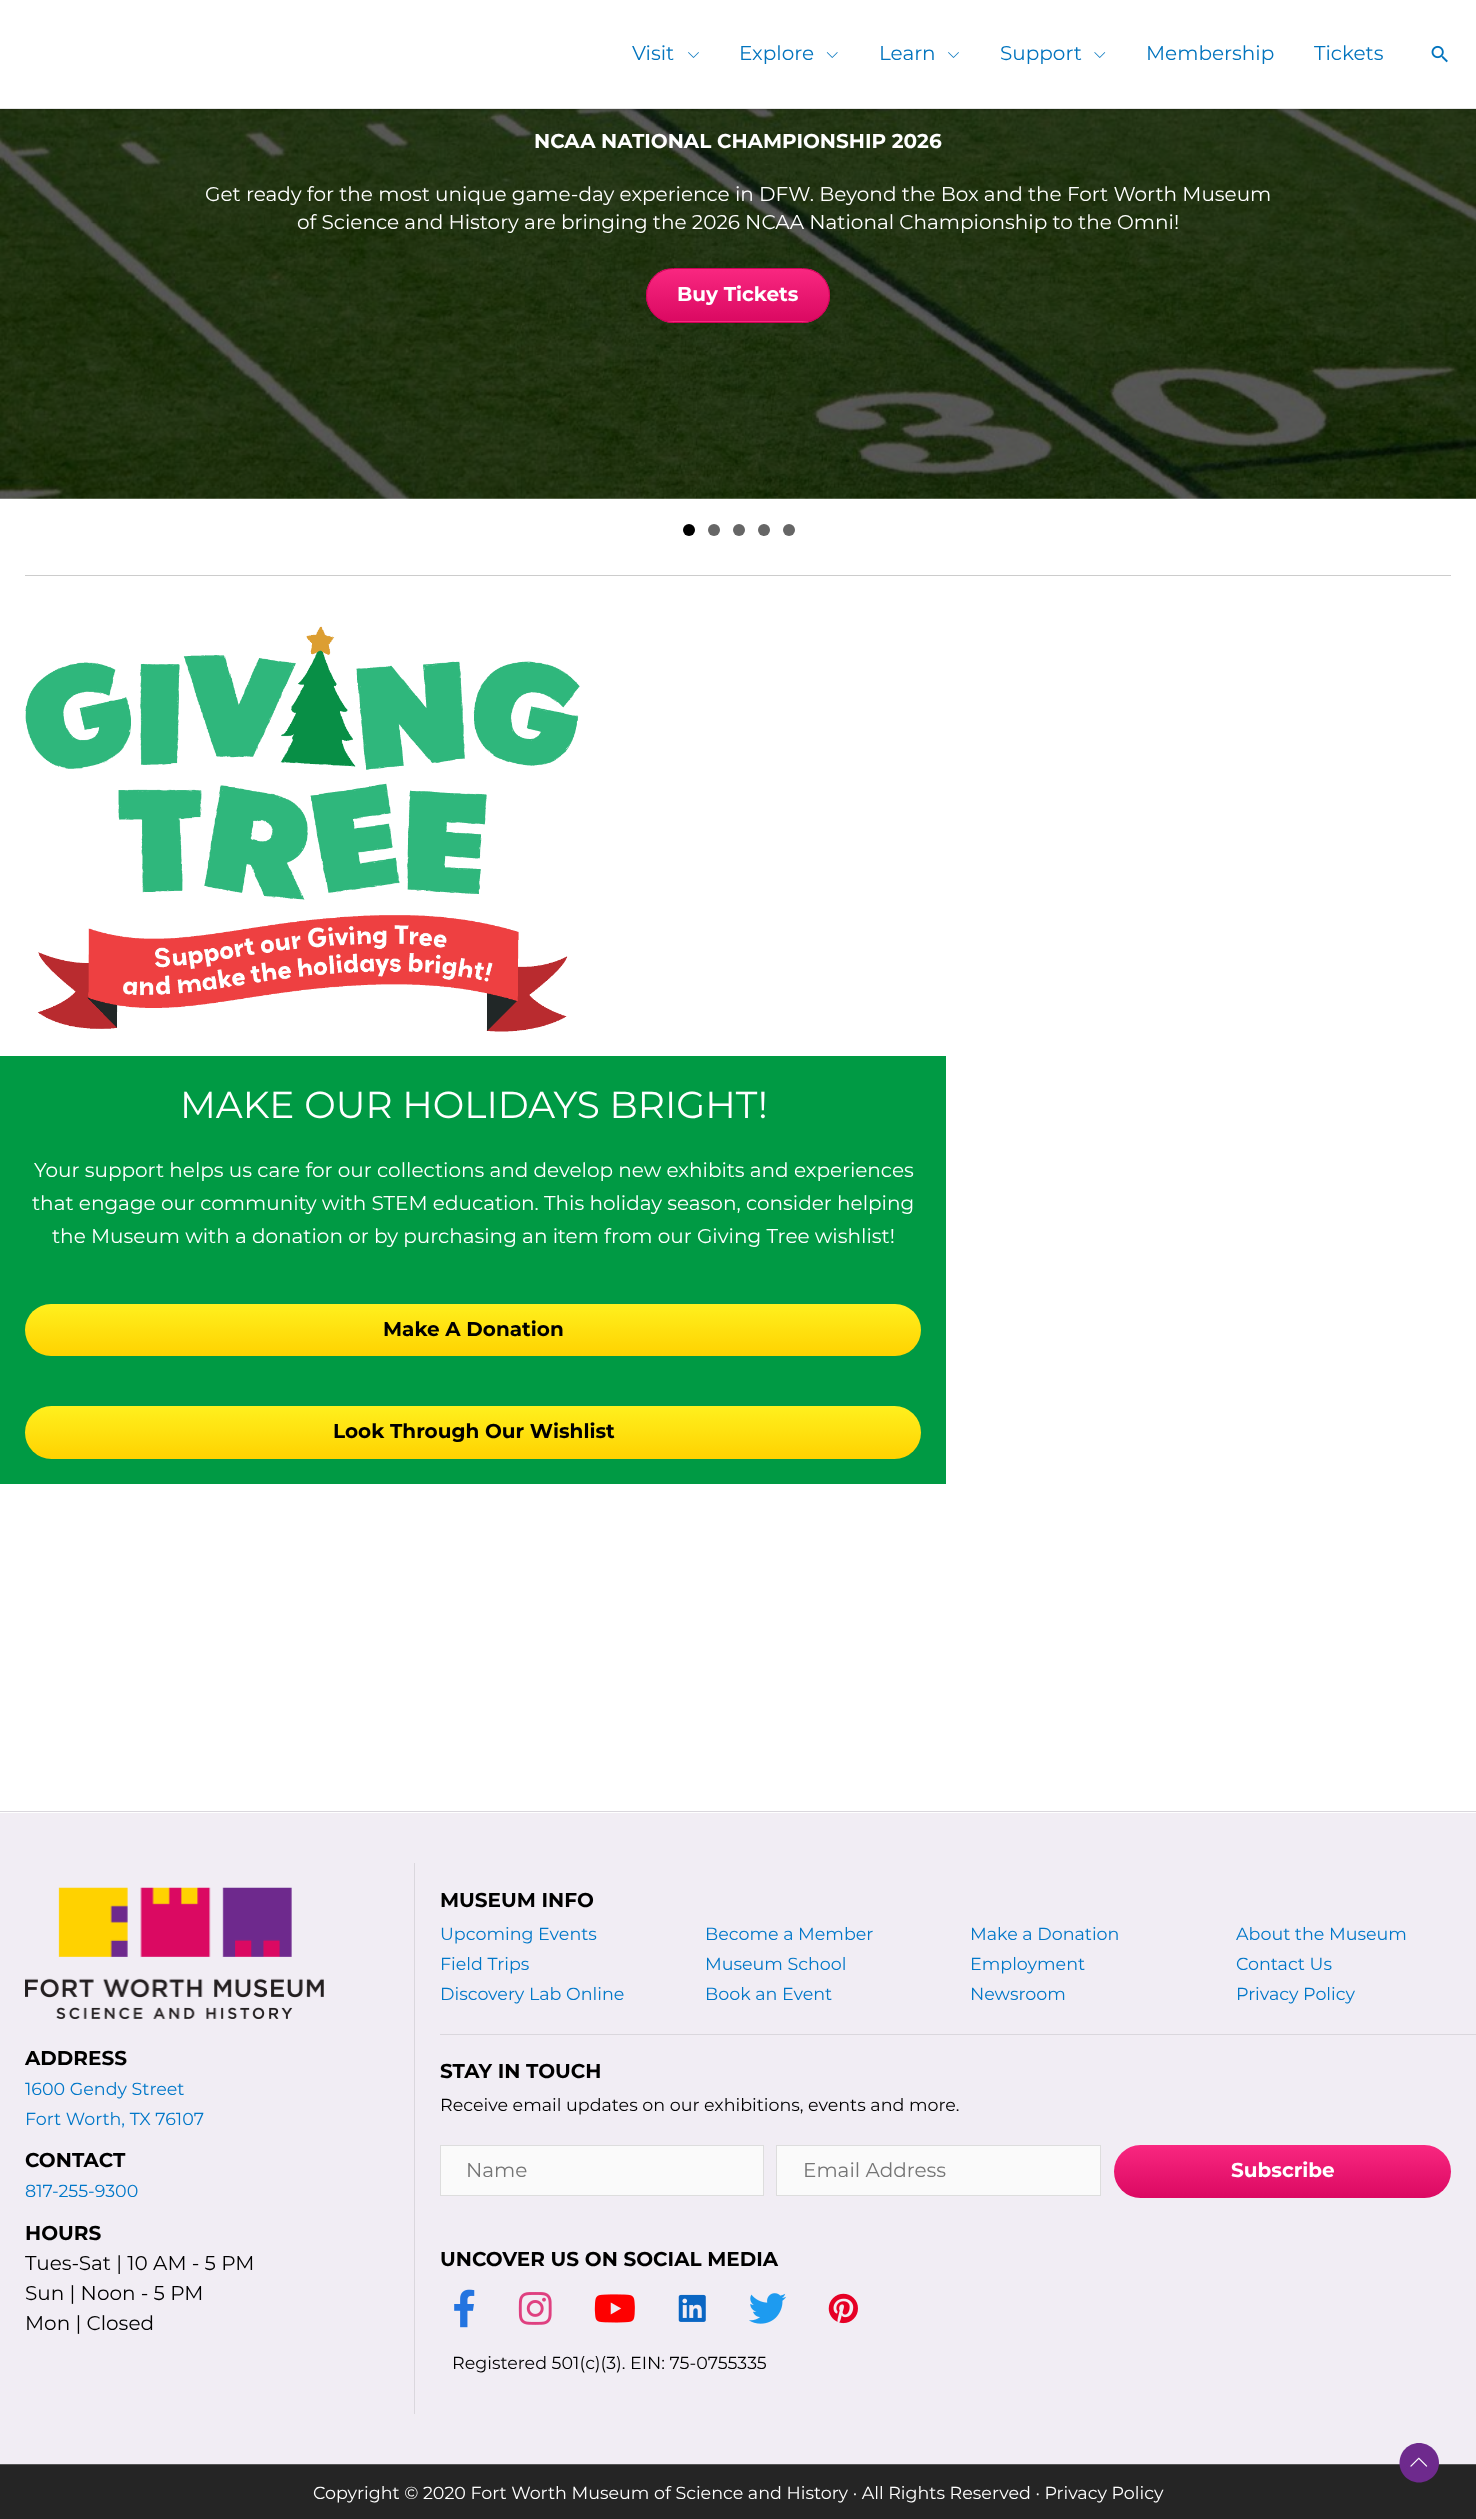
<svg xmlns="http://www.w3.org/2000/svg" width="1476" height="2519">
	<defs>
		<clipPath id="clip1"><rect x="646" y="268" width="184" height="55" rx="27.5" /></clipPath>
		<linearGradient id="g1" gradientUnits="userSpaceOnUse" x1="738" y1="269" x2="738" y2="321"><stop offset="0" stop-color="#F92780" /><stop offset="1" stop-color="#DB0962" /></linearGradient>
		<linearGradient id="g2" gradientUnits="userSpaceOnUse" x1="738" y1="321" x2="738" y2="374"><stop offset="0" stop-color="#F92780" /><stop offset="1" stop-color="#DB0962" /></linearGradient>
		<linearGradient id="g3" gradientUnits="userSpaceOnUse" x1="473" y1="1304" x2="473" y2="1356"><stop offset="0" stop-color="#FFF01E" /><stop offset="1" stop-color="#FFD200" /></linearGradient>
		<linearGradient id="g4" gradientUnits="userSpaceOnUse" x1="473" y1="1406" x2="473" y2="1459"><stop offset="0" stop-color="#FFF01E" /><stop offset="1" stop-color="#FFD200" /></linearGradient>
		<linearGradient id="g5" gradientUnits="userSpaceOnUse" x1="1283" y1="2145" x2="1283" y2="2198"><stop offset="0" stop-color="#F92780" /><stop offset="1" stop-color="#DB0962" /></linearGradient>
	</defs>
	<rect width="100%" height="100%" fill="#FFFFFF" />
	<image x="0" y="109" width="1476" height="390" href="assets/img5.png" />
	<rect x="0" y="1" width="1476" height="109" fill="#000000" fill-opacity="0.2" filter="blur(1px)" />
	<rect x="0" y="0" width="1476" height="108" fill="#FFFFFF" />
	<rect x="0" y="108" width="1476" height="1" fill="#E5E5E5" />
	<text x="632" y="60" font-family="Montserrat" font-size="20" fill="#0274BE">Visit</text>
	<image x="688" y="52" width="11" height="6" href="assets/img1.png" />
	<text x="739" y="60" font-family="Montserrat" font-size="20" fill="#0274BE">Explore</text>
	<image x="826" y="52" width="12" height="6" href="assets/img2.png" />
	<text x="879" y="60" font-family="Montserrat" font-size="20" fill="#0274BE">Learn</text>
	<image x="948" y="52" width="11" height="6" href="assets/img1.png" />
	<text x="1000" y="60" font-family="Montserrat" font-size="20" fill="#0274BE">Support</text>
	<image x="1094" y="52" width="12" height="6" href="assets/img3.png" />
	<g font-family="Montserrat" font-size="20" fill="#0274BE">
		<text x="1146" y="60">Membership</text>
		<text x="1314" y="60">Tickets</text>
	</g>
	<image x="1431" y="45" width="17" height="18" href="assets/img4.png" />
	<text x="534" y="148" font-family="Montserrat" font-size="20" font-weight="100" fill="#FFFFFF">NCAA NATIONAL CHAMPIONSHIP 2026</text>
	<g font-family="Montserrat" font-size="20" fill="#FFFFFF">
		<text x="205" y="201">Get ready for the most unique game-day experience in DFW. Beyond the Box and the Fort Worth Museum</text>
		<text x="297" y="229">of Science and History are bringing the 2026 NCAA National Championship to the Omni!</text>
	</g>
	<g clip-path="url(#clip1)">
		<rect x="646" y="269" width="184" height="52" fill="url(#g1)" />
		<rect x="663" y="321" width="150" height="2" fill="url(#g2)" />
	</g>
	<rect x="646.5" y="268.5" width="183" height="54" rx="27" fill="none" stroke="#CF0056" />
	<text x="677" y="301" font-family="Montserrat" font-size="20" font-weight="100" fill="#FFFFFF">Buy Tickets</text>
	<circle cx="689" cy="530" r="6" fill="#000000" />
	<circle cx="714" cy="530" r="6" fill="#666666" />
	<circle cx="739" cy="530" r="6" fill="#666666" />
	<circle cx="764" cy="530" r="6" fill="#666666" />
	<circle cx="789" cy="530" r="6" fill="#666666" />
	<rect x="25" y="575" width="1426" height="1" fill="#CCCCCC" />
	<image x="25" y="626" width="555" height="406" href="assets/img6.png" />
	<rect x="0" y="1056" width="946" height="428" fill="#009A44" />
	<text x="180" y="1118" font-family="Montserrat" font-size="37.5" fill="#FFFFFF">MAKE OUR HOLIDAYS BRIGHT!</text>
	<g font-family="Montserrat" font-size="20" fill="#FFFFFF">
		<text x="34" y="1177">Your support helps us care for our collections and develop new exhibits and experiences</text>
		<text x="32" y="1210">that engage our community with STEM education. This holiday season, consider helping</text>
		<text x="52" y="1243">the Museum with a donation or by purchasing an item from our Giving Tree wishlist!</text>
	</g>
	<rect x="25" y="1304" width="896" height="52" rx="26" fill="url(#g3)" />
	<text x="383" y="1336" font-family="Montserrat" font-size="20" font-weight="100" fill="#000000">Make A Donation</text>
	<rect x="25" y="1406" width="896" height="53" rx="26.5" fill="url(#g4)" />
	<text x="333" y="1438" font-family="Montserrat" font-size="20" font-weight="100" fill="#000000">Look Through Our Wishlist</text>
	<rect x="0" y="1813" width="1476" height="651" fill="#F1EDF4" />
	<rect x="0" y="1811" width="1476" height="1" fill="#DAD7DD" />
	<image x="25" y="1887" width="299" height="132" href="assets/img7.png" />
	<text x="25" y="2065" font-family="Montserrat" font-size="20" font-weight="100" fill="#000000">ADDRESS</text>
	<g font-family="Montserrat" font-size="17.5" fill="#0077C8">
		<text x="25" y="2095">1600 Gendy Street</text>
		<text x="25" y="2125">Fort Worth, TX 76107</text>
	</g>
	<text x="25" y="2167" font-family="Montserrat" font-size="20" font-weight="100" fill="#000000">CONTACT</text>
	<text x="25" y="2197" font-family="Montserrat" font-size="17.5" fill="#0077C8">817-255-9300</text>
	<text x="25" y="2240" font-family="Montserrat" font-size="20" font-weight="100" fill="#000000">HOURS</text>
	<g font-family="Montserrat" font-size="20" fill="#000000">
		<text x="25" y="2270">Tues-Sat | 10 AM - 5 PM</text>
		<text x="25" y="2300">Sun | Noon - 5 PM</text>
		<text x="25" y="2330">Mon | Closed</text>
	</g>
	<rect x="414" y="1863" width="1" height="551" fill="#DAD7DD" />
	<text x="440" y="1907" font-family="Montserrat" font-size="20" font-weight="100" fill="#000000">MUSEUM INFO</text>
	<g font-family="Montserrat" font-size="17.5" fill="#0077C8">
		<text x="440" y="1940">Upcoming Events</text>
		<text x="440" y="1970">Field Trips</text>
		<text x="440" y="2000">Discovery Lab Online</text>
		<text x="705" y="1940">Become a Member</text>
		<text x="705" y="1970">Museum School</text>
		<text x="705" y="2000">Book an Event</text>
		<text x="970" y="1940">Make a Donation</text>
		<text x="970" y="1970">Employment</text>
		<text x="970" y="2000">Newsroom</text>
		<text x="1236" y="1940">About the Museum</text>
		<text x="1236" y="1970">Contact Us</text>
		<text x="1236" y="2000">Privacy Policy</text>
	</g>
	<rect x="440" y="2034" width="1036" height="1" fill="#DAD7DD" />
	<text x="440" y="2078" font-family="Montserrat" font-size="20" font-weight="100" fill="#000000">STAY IN TOUCH</text>
	<text x="440" y="2111" font-family="Montserrat" font-size="17.5" fill="#000000">Receive email updates on our exhibitions, events and more.</text>
	<rect x="440.5" y="2145.5" width="323" height="50" fill="#FAFAFA" stroke="#DDDDDD" />
	<text x="466" y="2177" font-family="Montserrat" font-size="20" fill="#757575">Name</text>
	<rect x="776.5" y="2145.5" width="324" height="50" fill="#FAFAFA" stroke="#DDDDDD" />
	<text x="803" y="2177" font-family="Montserrat" font-size="20" fill="#757575">Email Address</text>
	<rect x="1114" y="2145" width="337" height="53" rx="26.5" fill="url(#g5)" />
	<text x="1231" y="2177" font-family="Montserrat" font-size="20" font-weight="100" fill="#FFFFFF">Subscribe</text>
	<text x="440" y="2266" font-family="Montserrat" font-size="20" font-weight="100" fill="#000000">UNCOVER US ON SOCIAL MEDIA</text>
	<image x="454" y="2289" width="21" height="39" href="assets/img8.png" />
	<image x="518" y="2292" width="34" height="33" href="assets/img9.png" />
	<image x="594" y="2294" width="41" height="29" href="assets/img10.png" />
	<image x="678" y="2294" width="28" height="28" href="assets/img11.png" />
	<image x="749" y="2293" width="38" height="31" href="assets/img12.png" />
	<image x="828" y="2293" width="30" height="31" href="assets/img13.png" />
	<text x="452" y="2369" font-family="Montserrat" font-size="17.5" fill="#000000">Registered 501(c)(3). EIN: 75-0755335</text>
	<rect x="0" y="2465" width="1476" height="54" fill="#252525" />
	<rect x="0" y="2464" width="1476" height="1" fill="#555555" />
	<text x="313" y="2499" font-family="Montserrat" font-size="17.5" fill="#FFFFFF">Copyright © 2020 Fort Worth Museum of Science and History · All Rights Reserved · Privacy Policy</text>
	<path d="M1419 2482.5C1408 2482.5 1399.5 2473.5 1399.5 2463C1399.5 2452 1408 2443 1419 2443C1430 2443 1439 2452 1439 2463C1439 2473.5 1430 2482.5 1419 2482.5Z" fill="#6E2A8D" />
	<image x="1410" y="2457" width="18" height="10" href="assets/img14.png" />
</svg>
